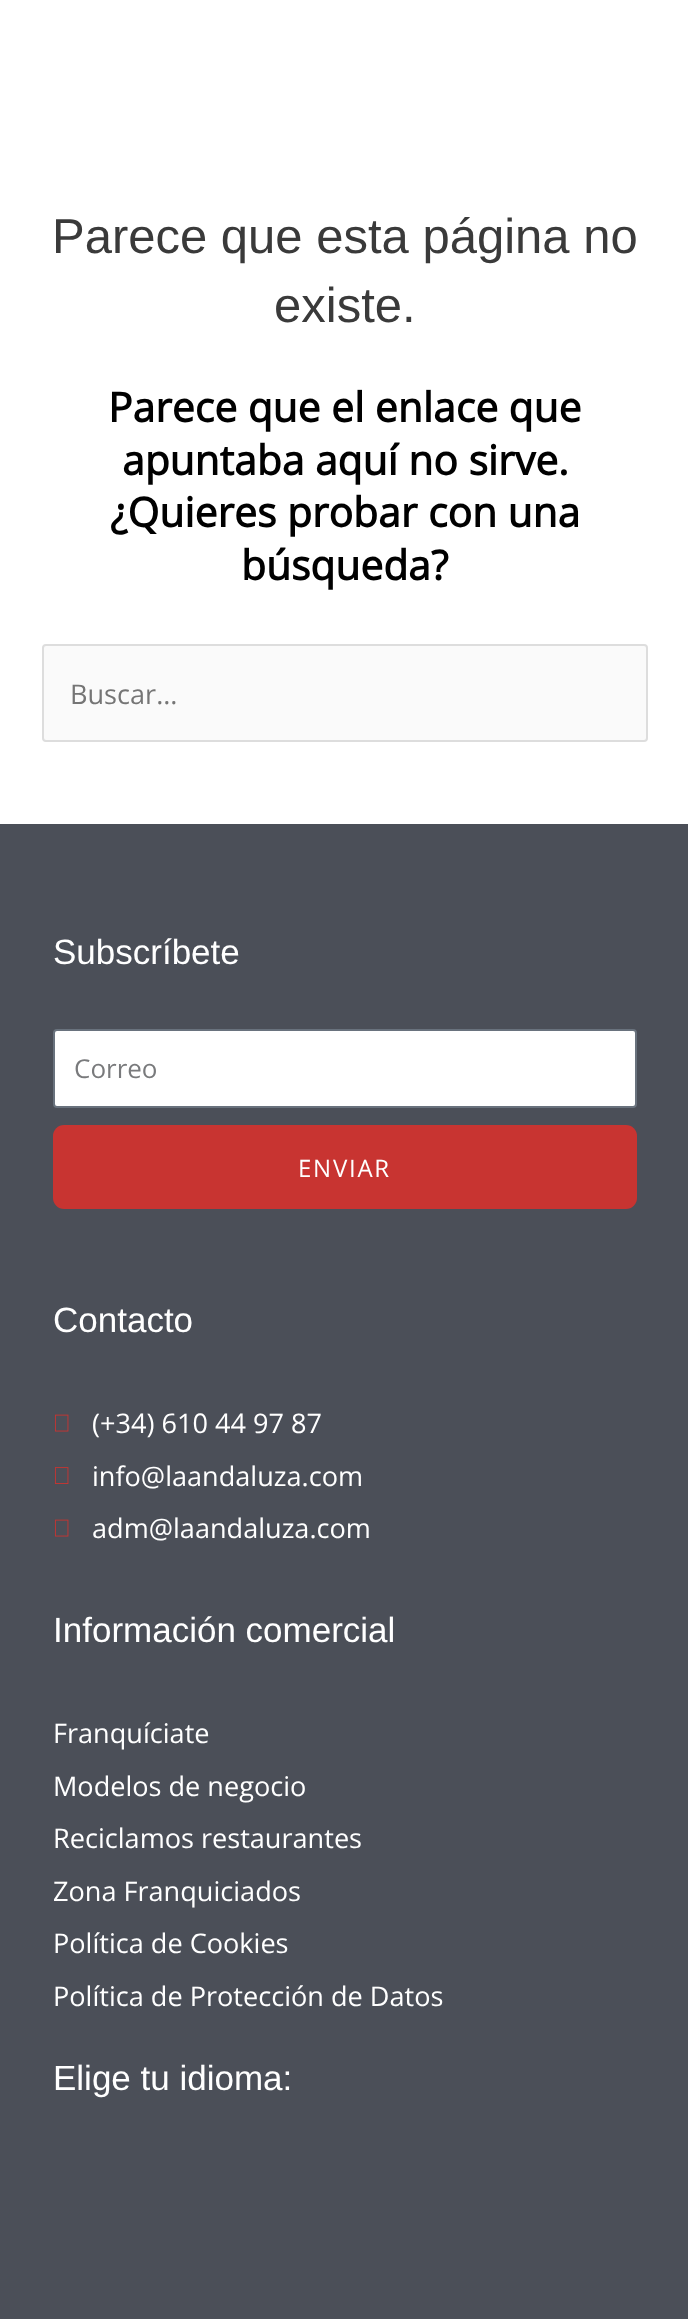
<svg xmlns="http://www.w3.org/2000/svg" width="688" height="2319">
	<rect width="100%" height="100%" fill="#FFFFFF" />
	<g font-family="Liberation Sans" font-size="49" fill="#3A3A3A">
		<text x="52" y="253">Parece que esta página no</text>
		<text x="274" y="322">existe.</text>
	</g>
	<g font-family="Open Sans" font-size="40.75" font-weight="700" fill="#000000">
		<text x="108" y="422">Parece que el enlace que</text>
		<text x="122" y="475">apuntaba aquí no sirve.</text>
		<text x="110" y="527">¿Quieres probar con una</text>
		<text x="241" y="580">búsqueda?</text>
	</g>
	<rect x="43" y="645" width="604" height="96" rx="3" fill="#FAFAFA" stroke="#DDDDDD" stroke-width="2" />
	<text x="70" y="704" font-family="Open Sans" font-size="27.1" fill="#757575">Buscar...</text>
	<rect x="0" y="824" width="688" height="1495" fill="#4B4F58" />
	<text x="53" y="964" font-family="Liberation Sans" font-size="35" fill="#FFFFFF">Subscríbete</text>
	<rect x="54" y="1030" width="582" height="77" rx="3" fill="#FFFFFF" stroke="#69727D" stroke-width="2" />
	<text x="74" y="1078" font-family="Open Sans" font-size="26" fill="#797A7C">Correo</text>
	<rect x="53" y="1125" width="584" height="84" rx="11" fill="#C83431" />
	<text x="298" y="1177" font-family="Open Sans" font-size="24" letter-spacing="1.75" fill="#FFFFFF">ENVIAR</text>
	<text x="53" y="1332" font-family="Liberation Sans" font-size="35" fill="#FFFFFF">Contacto</text>
	<image x="54" y="1414" width="15" height="18" href="assets/img1.png" />
	<text x="92" y="1433" font-family="Open Sans" font-size="27.1" fill="#FFFFFF">(+34) 610 44 97 87</text>
	<image x="54" y="1467" width="15" height="17" href="assets/img2.png" />
	<text x="92" y="1486" font-family="Open Sans" font-size="27.1" fill="#FFFFFF">info@laandaluza.com</text>
	<image x="54" y="1519" width="15" height="18" href="assets/img1.png" />
	<text x="92" y="1538" font-family="Open Sans" font-size="27.1" fill="#FFFFFF">adm@laandaluza.com</text>
	<text x="53" y="1642" font-family="Liberation Sans" font-size="35" fill="#FFFFFF">Información comercial</text>
	<g font-family="Open Sans" font-size="27.1" fill="#FFFFFF">
		<text x="53" y="1743">Franquíciate</text>
		<text x="53" y="1796">Modelos de negocio</text>
		<text x="53" y="1848">Reciclamos restaurantes</text>
		<text x="53" y="1901">Zona Franquiciados</text>
		<text x="53" y="1953">Política de Cookies</text>
		<text x="53" y="2006">Política de Protección de Datos</text>
	</g>
	<text x="53" y="2090" font-family="Liberation Sans" font-size="35" fill="#FFFFFF">Elige tu idioma:</text>
</svg>
